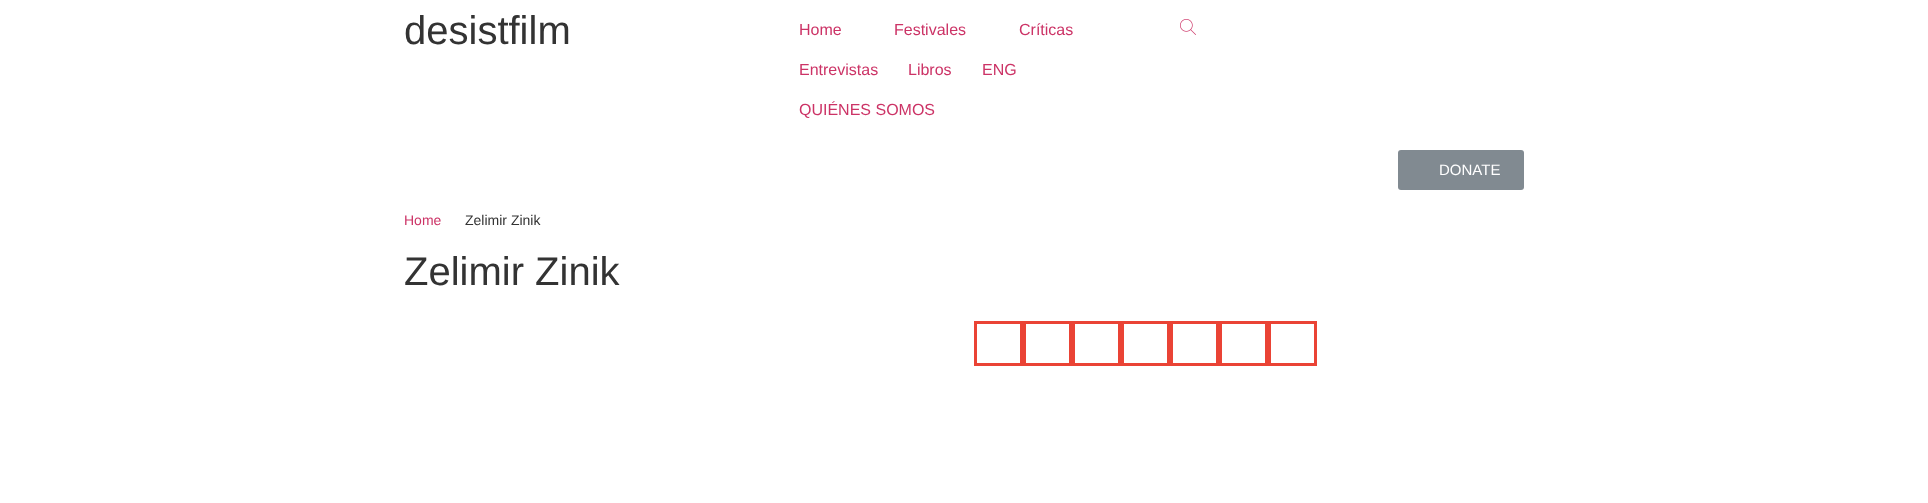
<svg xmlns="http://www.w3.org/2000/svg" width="1928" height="503">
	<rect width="100%" height="100%" fill="#FFFFFF" />
	<text x="404" y="44" font-family="Liberation Sans" font-size="40" fill="#333333">desistfilm</text>
	<g font-family="Liberation Sans" font-size="16" fill="#CC3366">
		<text x="799" y="35">Home</text>
		<text x="894" y="35">Festivales</text>
		<text x="1019" y="35">Críticas</text>
		<text x="799" y="75">Entrevistas</text>
		<text x="908" y="75">Libros</text>
		<text x="982" y="75">ENG</text>
		<text x="799" y="115">QUIÉNES SOMOS</text>
	</g>
	<image x="1180" y="19" width="16" height="16" href="assets/img1.png" />
	<rect x="1398" y="150" width="126" height="40" rx="3" fill="#818A91" />
	<text x="1439" y="175" font-family="Liberation Sans" font-size="15" fill="#FFFFFF">DONATE</text>
	<text x="404" y="225" font-family="Liberation Sans" font-size="14" fill="#CC3366">Home</text>
	<text x="465" y="225" font-family="Liberation Sans" font-size="14" fill="#333333">Zelimir Zinik</text>
	<text x="404" y="285" font-family="Liberation Sans" font-size="40" fill="#333333">Zelimir Zinik</text>
	<rect x="975.5" y="322.5" width="46" height="42" fill="none" stroke="#EA4335" stroke-width="3" />
	<rect x="1024.5" y="322.5" width="46" height="42" fill="none" stroke="#EA4335" stroke-width="3" />
	<rect x="1073.5" y="322.5" width="46" height="42" fill="none" stroke="#EA4335" stroke-width="3" />
	<rect x="1122.5" y="322.5" width="46" height="42" fill="none" stroke="#EA4335" stroke-width="3" />
	<rect x="1171.5" y="322.5" width="46" height="42" fill="none" stroke="#EA4335" stroke-width="3" />
	<rect x="1220.5" y="322.5" width="46" height="42" fill="none" stroke="#EA4335" stroke-width="3" />
	<rect x="1269.5" y="322.5" width="46" height="42" fill="none" stroke="#EA4335" stroke-width="3" />
</svg>
